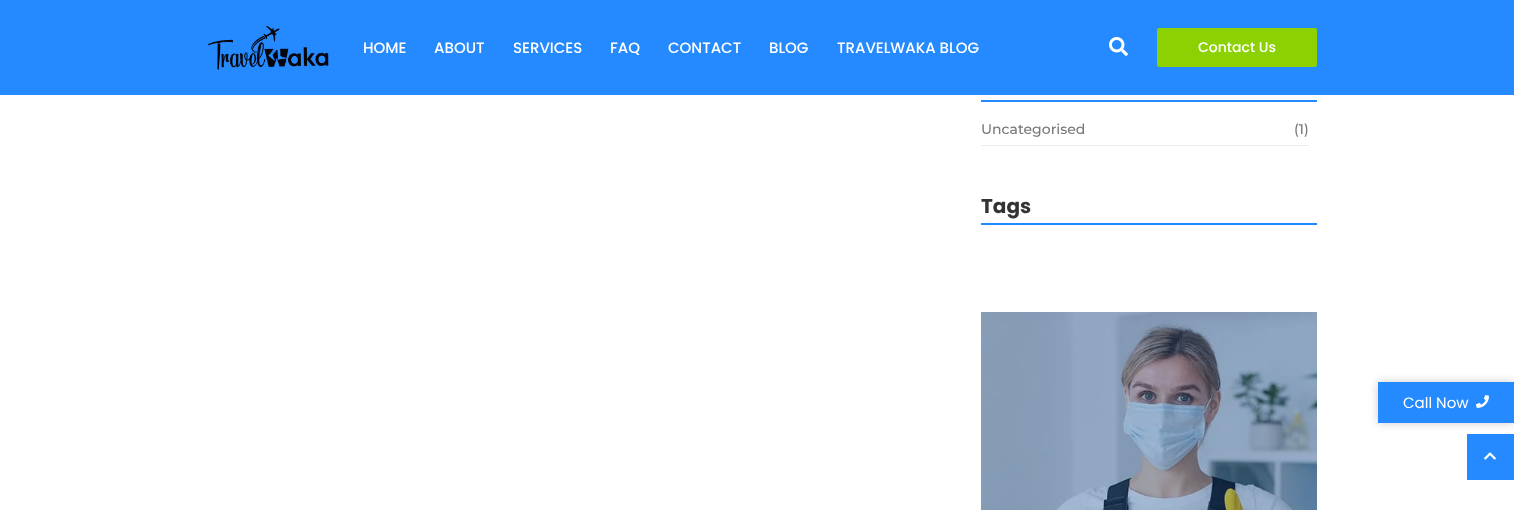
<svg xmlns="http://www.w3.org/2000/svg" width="1514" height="510">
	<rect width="100%" height="100%" fill="#FFFFFF" />
	<rect x="0" y="0" width="1514" height="95" fill="#2589FF" />
	<image x="207" y="26" width="122" height="44" href="assets/img1.png" />
	<g font-family="Poppins" font-size="15" font-weight="500" fill="#FFFFFF">
		<text x="363" y="53">HOME</text>
		<text x="434" y="53">ABOUT</text>
		<text x="513" y="53">SERVICES</text>
		<text x="610" y="53">FAQ</text>
		<text x="668" y="53">CONTACT</text>
		<text x="769" y="53">BLOG</text>
		<text x="837" y="53">TRAVELWAKA BLOG</text>
	</g>
	<image x="1109" y="37" width="19" height="19" href="assets/img2.png" />
	<rect x="1157" y="28" width="160" height="39" rx="2" fill="#8CD102" />
	<text x="1198" y="52" font-family="Poppins" font-size="14" font-weight="500" fill="#FFFFFF">Contact Us</text>
	<rect x="981" y="100" width="336" height="2" fill="#2589FF" />
	<rect x="981" y="145" width="328" height="1" fill="#ECECEC" />
	<g font-family="Montserrat" font-size="14" font-weight="500" fill="#777777">
		<text x="981" y="134">Uncategorised</text>
		<text x="1294" y="134">(1)</text>
	</g>
	<text x="981" y="213" font-family="Poppins" font-size="20" font-weight="700" fill="#333333">Tags</text>
	<rect x="981" y="223" width="336" height="2" fill="#2589FF" />
	<image x="981" y="312" width="336" height="198" href="assets/img3.png" />
	<rect x="1467" y="434" width="47" height="46" fill="#2589FF" />
	<rect x="1378" y="382" width="136" height="41" fill="#000000" fill-opacity="0.2" filter="blur(5px)" />
	<rect x="1378" y="382" width="136" height="41" fill="#2589FF" />
	<text x="1403" y="408" font-family="Poppins" font-size="15" fill="#FFFFFF">Call Now</text>
	<image x="1476" y="395" width="13" height="13" href="assets/img4.png" />
	<image x="1484" y="452" width="12" height="8" href="assets/img5.png" />
</svg>
